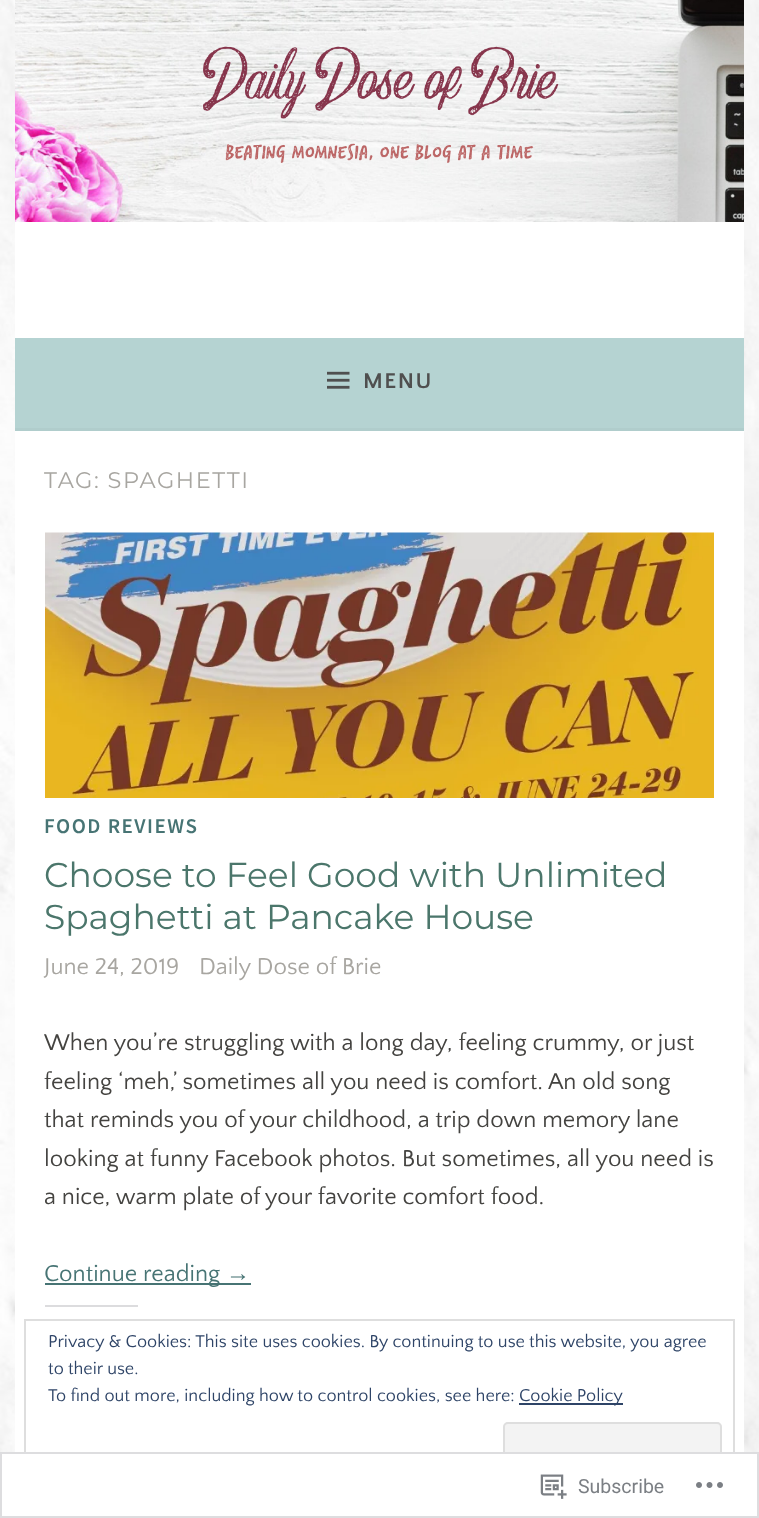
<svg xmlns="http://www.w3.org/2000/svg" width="759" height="1518">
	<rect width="100%" height="100%" fill="#FFFFFF" />
	<image x="0" y="0" width="759" height="1518" href="assets/img1.png" />
	<image x="15" y="0" width="729" height="222" href="assets/img2.png" />
	<rect x="15" y="222" width="729" height="116" fill="#FFFFFF" />
	<rect x="15" y="338" width="729" height="90" fill="#B5D3D2" />
	<rect x="15" y="428" width="729" height="3" fill="#B0CDCC" />
	<image x="327" y="371" width="23" height="18" href="assets/img3.png" />
	<text x="363" y="388" font-family="Quattrocento Sans" font-size="22.5" font-weight="700" letter-spacing="1.5" fill="#4F4F4F">MENU</text>
	<rect x="15" y="431" width="729" height="1087" fill="#FFFFFF" />
	<text x="44" y="488" font-family="Montserrat" font-size="22.5" font-weight="100" letter-spacing="1.5" fill="#A8A6A1">TAG: SPAGHETTI</text>
	<image x="45" y="532" width="669" height="266" href="assets/img4.png" />
	<text x="44" y="833" font-family="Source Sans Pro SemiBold" font-size="21" font-weight="600" letter-spacing="1.5" fill="#477474">FOOD REVIEWS</text>
	<g font-family="Montserrat" font-size="34.5" font-weight="100" fill="#4B766B">
		<text x="44" y="887">Choose to Feel Good with Unlimited</text>
		<text x="44" y="929">Spaghetti at Pancake House</text>
	</g>
	<g font-family="Quattrocento Sans" font-size="24" fill="#A8A6A1">
		<text x="44" y="974">June 24, 2019</text>
		<text x="199" y="974">Daily Dose of Brie</text>
	</g>
	<g font-family="Quattrocento Sans" font-size="24" fill="#444340">
		<text x="44" y="1050">When you’re struggling with a long day, feeling crummy, or just</text>
		<text x="44" y="1089">feeling ‘meh,’ sometimes all you need is comfort. An old song</text>
		<text x="44" y="1127">that reminds you of your childhood, a trip down memory lane</text>
		<text x="44" y="1166">looking at funny Facebook photos. But sometimes, all you need is</text>
		<text x="44" y="1204">a nice, warm plate of your favorite comfort food.</text>
	</g>
	<rect x="45" y="1283" width="206" height="2" fill="#477474" />
	<text x="44" y="1281" font-family="Quattrocento Sans" font-size="24" fill="#477474">Continue reading</text>
	<text x="226" y="1281" font-family="Liberation Sans" font-size="24" fill="#477474">→</text>
	<rect x="45" y="1305" width="93" height="2" fill="#DCDCDE" />
	<rect x="25" y="1320" width="709" height="173" fill="none" stroke="#DEDEDE" stroke-width="2" />
	<g font-family="Quattrocento Sans" font-size="18" fill="#2E4467">
		<text x="48" y="1347">Privacy &amp; Cookies: This site uses cookies. By continuing to use this website, you agree</text>
		<text x="48" y="1374">to their use.</text>
		<text x="48" y="1401">To find out more, including how to control cookies, see here:</text>
	</g>
	<rect x="519" y="1403" width="104" height="2" fill="#2E4467" />
	<text x="519" y="1401" font-family="Quattrocento Sans" font-size="18" fill="#2E4467">Cookie Policy</text>
	<rect x="503" y="1422" width="219" height="59" rx="5" fill="#F3F3F3" />
	<path d="M504 1473V1476C504 1478 505 1479 507 1479H717C719 1479 720 1478 720 1476V1473C720 1475 719 1476 717 1476H507C505 1476 504 1475 504 1473Z" fill="#DBDBDB" />
	<rect x="504" y="1423" width="217" height="57" rx="4" fill="none" stroke="#DEDEDE" stroke-width="2" />
	<rect x="0" y="1452" width="759" height="66" fill="#FFFFFF" fill-opacity="0.98" />
	<rect x="1" y="1453" width="757" height="64" fill="none" stroke="#DCDCDE" stroke-opacity="0.98" stroke-width="2" />
	<image x="540" y="1474" width="27" height="25" href="assets/img5.png" />
	<text x="578" y="1493" font-family="Roboto" font-size="19.5" fill="#7B7F84">Subscribe</text>
	<image x="696" y="1482" width="27" height="6" href="assets/img6.png" />
</svg>
